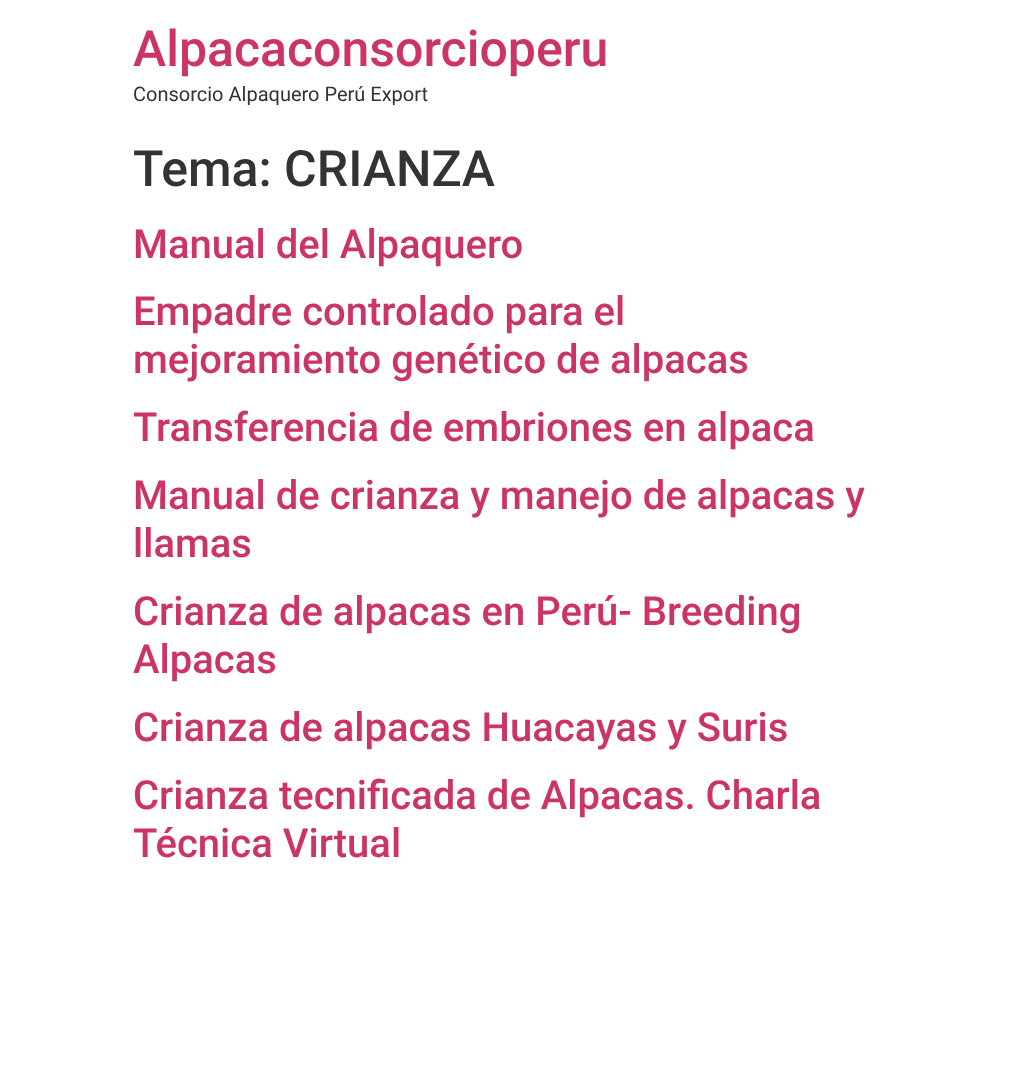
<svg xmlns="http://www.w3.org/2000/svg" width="1014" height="1072">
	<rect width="100%" height="100%" fill="#FFFFFF" />
	<text x="133" y="66" font-family="Roboto" font-size="50" font-weight="500" fill="#CC3366">Alpacaconsorcioperu</text>
	<text x="133" y="101" font-family="Roboto" font-size="20" fill="#333333">Consorcio Alpaquero Perú Export</text>
	<text x="133" y="186" font-family="Roboto" font-size="50" font-weight="500" fill="#333333">Tema: CRIANZA</text>
	<g font-family="Roboto" font-size="40" font-weight="500" fill="#CC3366">
		<text x="133" y="258">Manual del Alpaquero</text>
		<text x="133" y="325">Empadre controlado para el</text>
		<text x="133" y="373">mejoramiento genético de alpacas</text>
		<text x="133" y="441">Transferencia de embriones en alpaca</text>
		<text x="133" y="509">Manual de crianza y manejo de alpacas y</text>
		<text x="133" y="557">llamas</text>
		<text x="133" y="625">Crianza de alpacas en Perú- Breeding</text>
		<text x="133" y="673">Alpacas</text>
		<text x="133" y="741">Crianza de alpacas Huacayas y Suris</text>
		<text x="133" y="809">Crianza tecnificada de Alpacas. Charla</text>
		<text x="133" y="857">Técnica Virtual</text>
	</g>
</svg>
